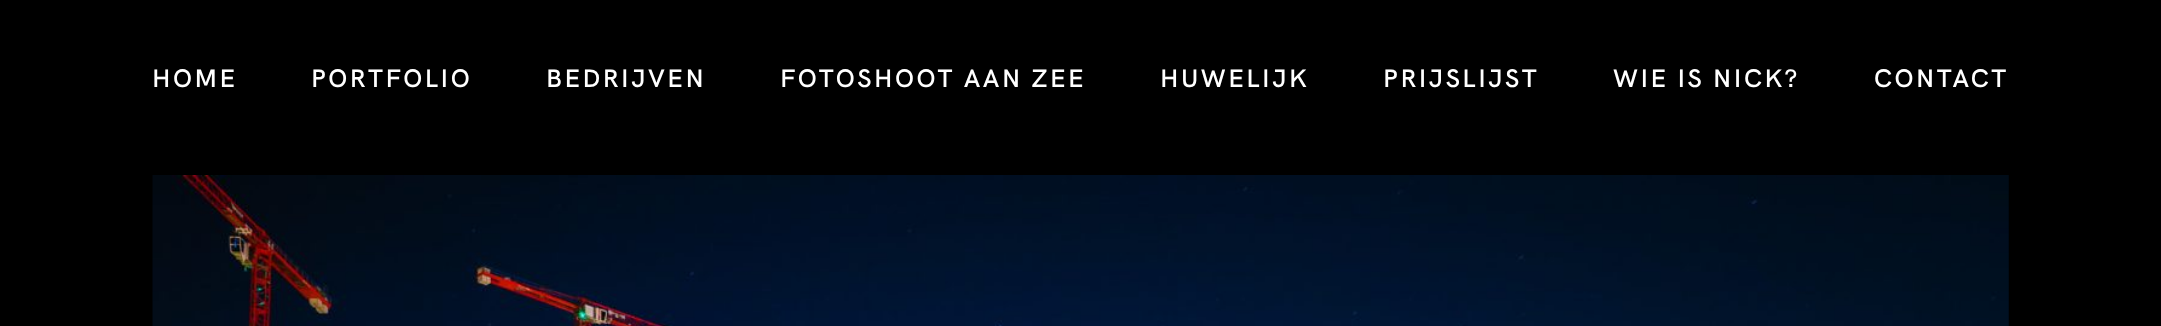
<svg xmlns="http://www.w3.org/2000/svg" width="2161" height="326">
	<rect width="100%" height="100%" fill="#000000" />
	<g font-family="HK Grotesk" font-size="25.25" font-weight="600" letter-spacing="2.5" fill="#FFFFFF">
		<text x="152" y="87">HOME</text>
		<text x="311" y="87">PORTFOLIO</text>
		<text x="546" y="87">BEDRIJVEN</text>
		<text x="780" y="87">FOTOSHOOT AAN ZEE</text>
		<text x="1160" y="87">HUWELIJK</text>
		<text x="1383" y="87">PRIJSLIJST</text>
		<text x="1613" y="87">WIE IS NICK?</text>
		<text x="1874" y="87">CONTACT</text>
	</g>
	<image x="152" y="175" width="1857" height="151" href="assets/img1.png" />
</svg>
